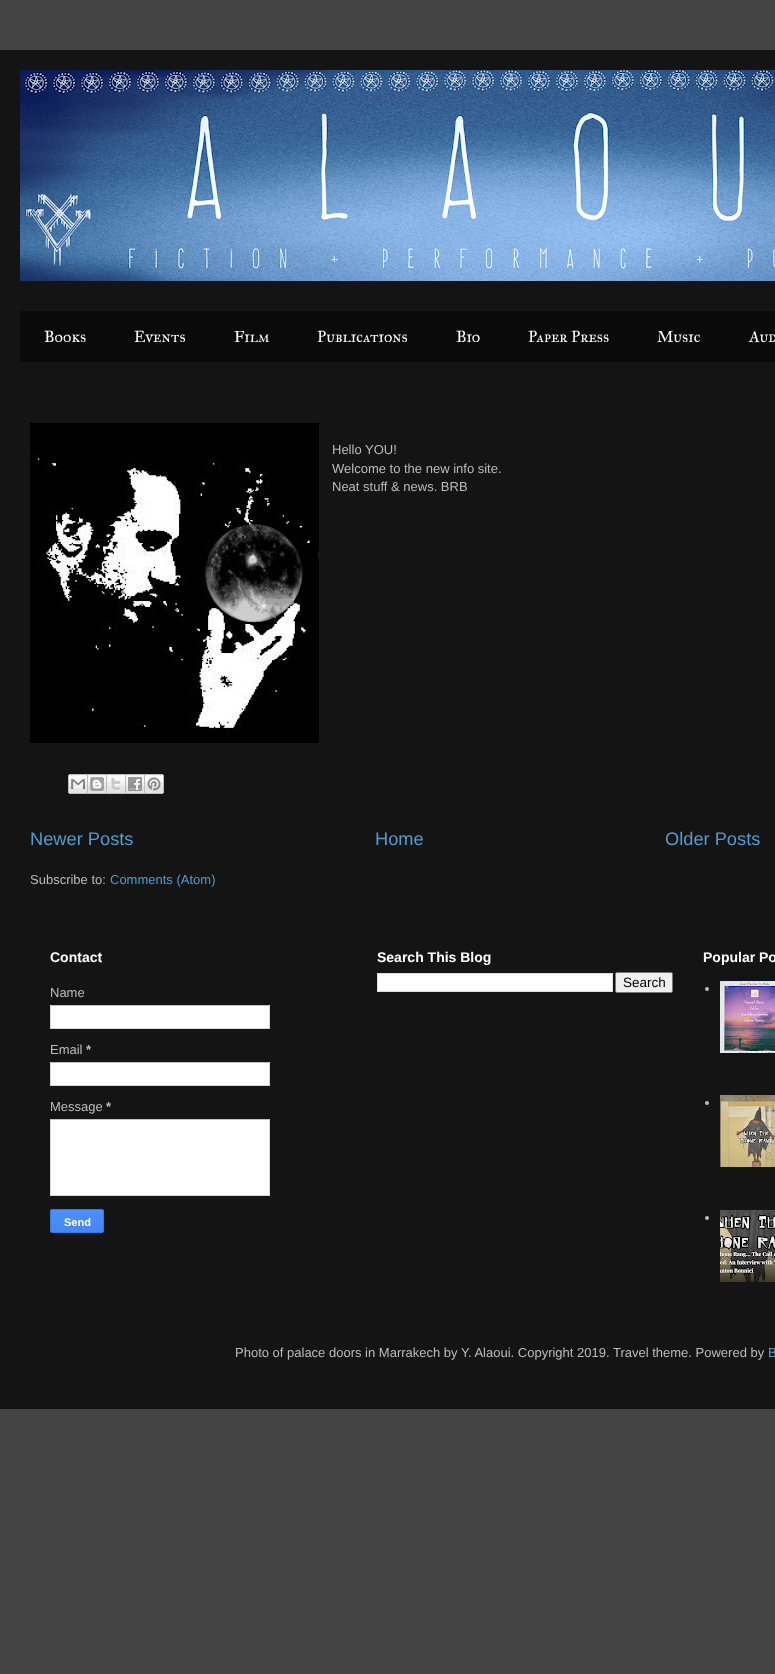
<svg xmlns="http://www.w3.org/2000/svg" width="775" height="1674">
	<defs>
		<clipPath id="clip1"><rect x="50" y="1209" width="54" height="24" rx="2" /></clipPath>
		<linearGradient id="g1" gradientUnits="userSpaceOnUse" x1="77" y1="1210" x2="77" y2="1232"><stop offset="0" stop-color="#4D90FE" /><stop offset="1" stop-color="#4787ED" /></linearGradient>
	</defs>
	<rect width="100%" height="100%" fill="#444444" />
	<rect x="0" y="50" width="775" height="1359" fill="#141414" />
	<image x="20" y="70" width="755" height="211" href="assets/img1.png" />
	<rect x="20" y="311" width="755" height="51" fill="#0A0A0A" />
	<g font-family="IM FELL Great Primer SC" font-size="16" fill="#FFFFFF">
		<text x="44" y="342">Books</text>
		<text x="134" y="342">Events</text>
		<text x="234" y="342">Film</text>
		<text x="317" y="342">Publications</text>
		<text x="456" y="342">Bio</text>
		<text x="528" y="342">Paper Press</text>
		<text x="657" y="342">Music</text>
		<text x="749" y="342">Aud</text>
	</g>
	<image x="30" y="423" width="289" height="320" href="assets/img2.png" />
	<g font-family="Liberation Sans" font-size="13" fill="#BBBBBB">
		<text x="332" y="454">Hello YOU!</text>
		<text x="332" y="473">Welcome to the new info site.</text>
		<text x="332" y="491">Neat stuff &amp; news. BRB</text>
	</g>
	<image x="68" y="774" width="20" height="20" href="assets/img3.png" />
	<image x="88" y="774" width="19" height="20" href="assets/img4.png" />
	<image x="107" y="774" width="19" height="20" href="assets/img5.png" />
	<image x="126" y="774" width="19" height="20" href="assets/img6.png" />
	<image x="145" y="774" width="19" height="20" href="assets/img7.png" />
	<g font-family="Liberation Sans" font-size="18.25" fill="#539BCD">
		<text x="30" y="845">Newer Posts</text>
		<text x="375" y="845">Home</text>
		<text x="665" y="845">Older Posts</text>
	</g>
	<text x="30" y="884" font-family="Liberation Sans" font-size="13" fill="#BBBBBB">Subscribe to:</text>
	<text x="110" y="884" font-family="Liberation Sans" font-size="13" fill="#539BCD">Comments (Atom)</text>
	<text x="50" y="962" font-family="Liberation Sans" font-size="14" font-weight="700" fill="#FFFFFF">Contact</text>
	<text x="50" y="997" font-family="Liberation Sans" font-size="13" fill="#BBBBBB">Name</text>
	<rect x="51" y="1006" width="218" height="22" fill="#FFFFFF" />
	<rect x="50" y="1005" width="220" height="1" fill="#C0C0C0" />
	<rect x="269" y="1005" width="1" height="24" fill="#D9D9D9" />
	<rect x="50" y="1028" width="220" height="1" fill="#D9D9D9" />
	<rect x="50" y="1005" width="1" height="24" fill="#D9D9D9" />
	<text x="50" y="1054" font-family="Liberation Sans" font-size="13" fill="#BBBBBB">Email</text>
	<text x="86" y="1054" font-family="Liberation Sans" font-size="13" font-weight="700" fill="#BBBBBB">*</text>
	<rect x="51" y="1063" width="218" height="22" fill="#FFFFFF" />
	<rect x="50" y="1062" width="220" height="1" fill="#C0C0C0" />
	<rect x="269" y="1062" width="1" height="24" fill="#D9D9D9" />
	<rect x="50" y="1085" width="220" height="1" fill="#D9D9D9" />
	<rect x="50" y="1062" width="1" height="24" fill="#D9D9D9" />
	<text x="50" y="1111" font-family="Liberation Sans" font-size="13" fill="#BBBBBB">Message</text>
	<text x="106" y="1111" font-family="Liberation Sans" font-size="13" font-weight="700" fill="#BBBBBB">*</text>
	<rect x="51" y="1120" width="218" height="75" fill="#FFFFFF" />
	<rect x="50" y="1119" width="220" height="1" fill="#C0C0C0" />
	<rect x="269" y="1119" width="1" height="77" fill="#D9D9D9" />
	<rect x="50" y="1195" width="220" height="1" fill="#D9D9D9" />
	<rect x="50" y="1119" width="1" height="77" fill="#D9D9D9" />
	<g clip-path="url(#clip1)">
		<rect x="50" y="1210" width="54" height="22" fill="url(#g1)" />
	</g>
	<rect x="50.5" y="1209.5" width="53" height="23" rx="1.5" fill="none" stroke="#3079ED" />
	<text x="64" y="1226" font-family="Liberation Sans" font-size="11" font-weight="700" fill="#FFFFFF">Send</text>
	<text x="377" y="962" font-family="Liberation Sans" font-size="14" font-weight="700" fill="#FFFFFF">Search This Blog</text>
	<rect x="377.5" y="973.5" width="235" height="18" fill="#FFFFFF" stroke="#DDDDDD" />
	<rect x="615.5" y="972.5" width="57" height="20" rx="1.5" fill="#EFEFEF" stroke="#767676" />
	<text x="623" y="987" font-family="Liberation Sans" font-size="13.5" fill="#000000">Search</text>
	<text x="703" y="962" font-family="Liberation Sans" font-size="14" font-weight="700" fill="#FFFFFF">Popular Po</text>
	<circle cx="707" cy="989" r="2" fill="#BBBBBB" />
	<image x="720" y="981" width="55" height="72" href="assets/img8.png" />
	<circle cx="707" cy="1103" r="2" fill="#BBBBBB" />
	<image x="720" y="1095" width="55" height="72" href="assets/img9.png" />
	<circle cx="707" cy="1218" r="2" fill="#BBBBBB" />
	<image x="720" y="1210" width="55" height="72" href="assets/img10.png" />
	<text x="235" y="1357" font-family="Liberation Sans" font-size="13" fill="#BBBBBB">Photo of palace doors in Marrakech by Y. Alaoui. Copyright 2019. Travel theme. Powered by</text>
	<text x="768" y="1357" font-family="Liberation Sans" font-size="13" fill="#539BCD">B</text>
</svg>
